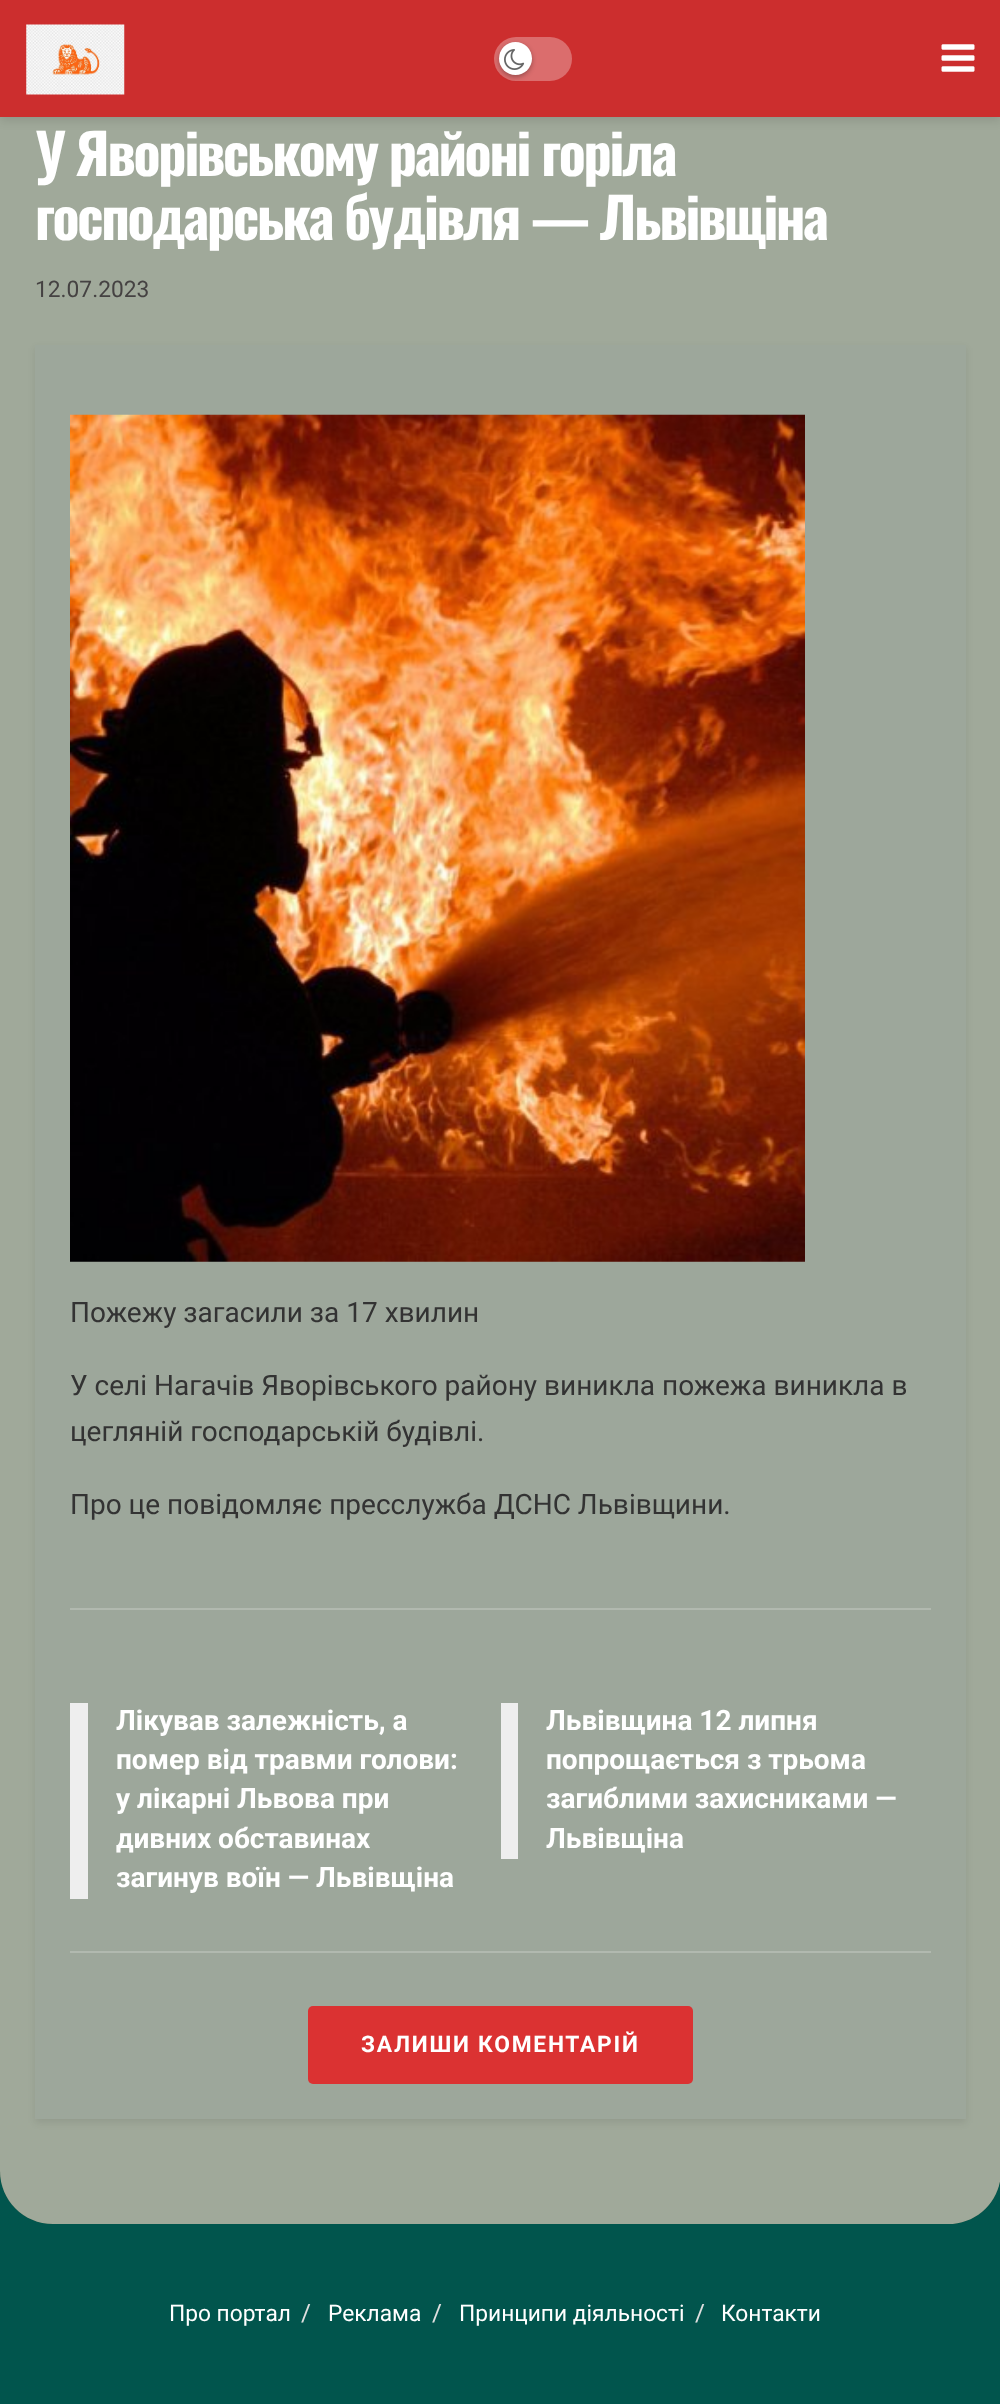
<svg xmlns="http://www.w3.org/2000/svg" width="1000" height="2404">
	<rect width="100%" height="100%" fill="#01554D" />
	<path d="M0 33H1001V2171C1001 2200.5 977.5 2224 948 2224H53C23.5 2224 0 2200.5 0 2171Z" fill="#314524" />
	<path d="M0 33H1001V2171C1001 2200.5 977.5 2224 948 2224H53C23.5 2224 0 2200.5 0 2171Z" fill="#FFFFFF" fill-opacity="0.54" />
	<rect x="0" y="4" width="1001" height="117" fill="#000000" fill-opacity="0.1" filter="blur(5px)" />
	<rect x="0" y="0" width="1000" height="117" fill="#CC2E2E" />
	<image x="26" y="24" width="99" height="71" href="assets/img1.png" />
	<rect x="494" y="37" width="78" height="44" rx="22" fill="#DB6D6D" />
	<rect x="499" y="44" width="33" height="33" rx="16.5" fill="#000000" fill-opacity="0.3" filter="blur(2.5px)" />
	<circle cx="515.5" cy="58.5" r="16.5" fill="#FFFFFF" />
	<image x="504" y="49" width="21" height="21" href="assets/img2.png" />
	<image x="941" y="44" width="34" height="28" href="assets/img3.png" />
	<g font-family="Oswald" font-size="56" font-weight="700" letter-spacing="-2.25" fill="#FFFFFF">
		<text x="35" y="176">У Яворівському районі горіла</text>
		<text x="35" y="240">господарська будівля — Львівщіна</text>
	</g>
	<text x="35" y="297" font-family="Roboto" font-size="22.75" fill="#454242">12.07.2023</text>
	<rect x="35" y="348" width="931" height="1775" fill="#000000" fill-opacity="0.08" filter="blur(3.5px)" />
	<rect x="35" y="345" width="931" height="1774" fill="#9DA79B" />
	<image x="70" y="414" width="735" height="848" href="assets/img4.png" />
	<g font-family="Roboto" font-size="28" fill="#333333">
		<text x="70" y="1322">Пожежу загасили за 17 хвилин</text>
		<text x="70" y="1395">У селі Нагачів Яворівського району виникла пожежа виникла в</text>
		<text x="70" y="1441">цегляній господарській будівлі.</text>
		<text x="70" y="1514">Про це повідомляє пресслужба ДСНС Львівщини.</text>
	</g>
	<rect x="70" y="1608" width="861" height="2" fill="#B1B9AF" />
	<rect x="70" y="1951" width="861" height="2" fill="#B1B9AF" />
	<rect x="70" y="1703" width="18" height="196" fill="#EEEEEE" />
	<g font-family="Roboto" font-size="28" font-weight="700" fill="#FFFFFF">
		<text x="116" y="1730">Лікував залежність, а</text>
		<text x="116" y="1769">помер від травми голови:</text>
		<text x="116" y="1808">у лікарні Львова при</text>
		<text x="116" y="1848">дивних обставинах</text>
		<text x="116" y="1887">загинув воїн — Львівщіна</text>
	</g>
	<rect x="501" y="1703" width="17" height="156" fill="#EEEEEE" />
	<g font-family="Roboto" font-size="28" font-weight="700" fill="#FFFFFF">
		<text x="546" y="1730">Львівщина 12 липня</text>
		<text x="546" y="1769">попрощається з трьома</text>
		<text x="546" y="1808">загиблими захисниками —</text>
		<text x="546" y="1848">Львівщіна</text>
	</g>
	<rect x="308" y="2006" width="385" height="78" rx="5" fill="#DB3232" />
	<text x="361" y="2052" font-family="Roboto" font-size="22.75" font-weight="700" letter-spacing="1.75" fill="#FFFFFF">ЗАЛИШИ КОМЕНТАРІЙ</text>
	<text x="169" y="2321" font-family="Roboto" font-size="22.75" fill="#FFFFFF">Про портал</text>
	<text x="301" y="2321" font-family="Roboto" font-size="24" fill="#E0E0E0">/</text>
	<text x="328" y="2321" font-family="Roboto" font-size="22.75" fill="#FFFFFF">Реклама</text>
	<text x="432" y="2321" font-family="Roboto" font-size="24" fill="#E0E0E0">/</text>
	<text x="459" y="2321" font-family="Roboto" font-size="22.75" fill="#FFFFFF">Принципи діяльності</text>
	<text x="695" y="2321" font-family="Roboto" font-size="24" fill="#E0E0E0">/</text>
	<text x="721" y="2321" font-family="Roboto" font-size="22.75" fill="#FFFFFF">Контакти</text>
</svg>
